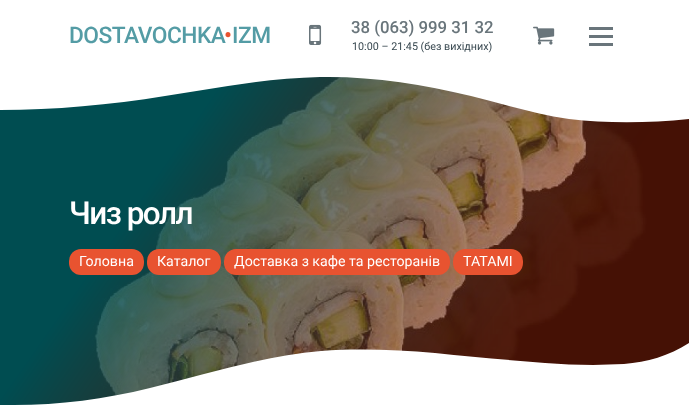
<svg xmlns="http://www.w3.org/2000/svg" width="689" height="411">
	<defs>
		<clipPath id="clip1"><rect x="0" y="71" width="689" height="61" /></clipPath>
		<clipPath id="clip2"><rect x="0" y="334" width="689" height="73" /></clipPath>
	</defs>
	<rect width="100%" height="100%" fill="#FFFFFF" />
	<text x="69" y="43" font-family="Roboto" font-size="22.75" font-weight="500" letter-spacing="-0.5" fill="#549CA5">DOSTAVOCHKA</text>
	<text x="224" y="43" font-family="Roboto" font-size="22.75" font-weight="500" letter-spacing="-0.5" fill="#E85330">•</text>
	<text x="232" y="43" font-family="Roboto" font-size="22.75" font-weight="500" letter-spacing="-0.5" fill="#549CA5">IZM</text>
	<image x="309" y="24" width="13" height="21" href="assets/img1.png" />
	<text x="351" y="33" font-family="Roboto" font-size="16.75" font-weight="500" fill="#69757B">38 (063) 999 31 32</text>
	<text x="352" y="50" font-family="Roboto" font-size="10.75" fill="#37474F">10:00 – 21:45 (без вихідних)</text>
	<image x="533" y="26" width="22" height="19" href="assets/img2.png" />
	<rect x="589" y="35" width="24" height="3" fill="#69757B" />
	<rect x="589" y="27" width="24" height="3" fill="#69757B" />
	<rect x="589" y="43" width="24" height="3" fill="#69757B" />
	<image x="0" y="76" width="689" height="329" href="assets/img3.png" />
	<g clip-path="url(#clip1)">
		<path d="M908 107V132C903 127 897 123 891 120L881 115C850 103 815 104 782 106C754 109 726 114 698 118C655 123 611 124 569 119C535 114 503 104 471 96C421 84 371 76 320 77C289 78 258 81 228 86L165 96C110 105 54 110-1 110V70H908Z" fill="#FFFFFF" />
	</g>
	<text x="69" y="224" font-family="Roboto" font-size="31.5" font-weight="500" letter-spacing="-1.5" fill="#FFFFFF">Чиз ролл</text>
	<rect x="69" y="249" width="75" height="26" rx="12" fill="#E85330" />
	<text x="79" y="266" font-family="Roboto" font-size="14.2" fill="#FFFFFF">Головна</text>
	<rect x="147" y="249" width="74" height="26" rx="12" fill="#E85330" />
	<text x="157" y="266" font-family="Roboto" font-size="14.2" fill="#FFFFFF">Каталог</text>
	<rect x="224" y="249" width="226" height="26" rx="12" fill="#E85330" />
	<text x="234" y="266" font-family="Roboto" font-size="14.2" fill="#FFFFFF">Доставка з кафе та ресторанів</text>
	<rect x="453" y="249" width="70" height="26" rx="12" fill="#E85330" />
	<text x="463" y="266" font-family="Roboto" font-size="14.2" fill="#FFFFFF">TATAMI</text>
	<g clip-path="url(#clip2)">
		<path d="M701 370V334L689 343C669 356 647 362 624 364L593 365C577 365 561 364 545 363C509 360 472 357 435 353C398 350 359 348 321 351C263 356 207 374 150 388C105 399 60 405 14 405C-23 405-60 403-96 399L-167 387C-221 379-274 369-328 364L-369 360L-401 358V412H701Z" fill="#FFFFFF" />
	</g>
</svg>
